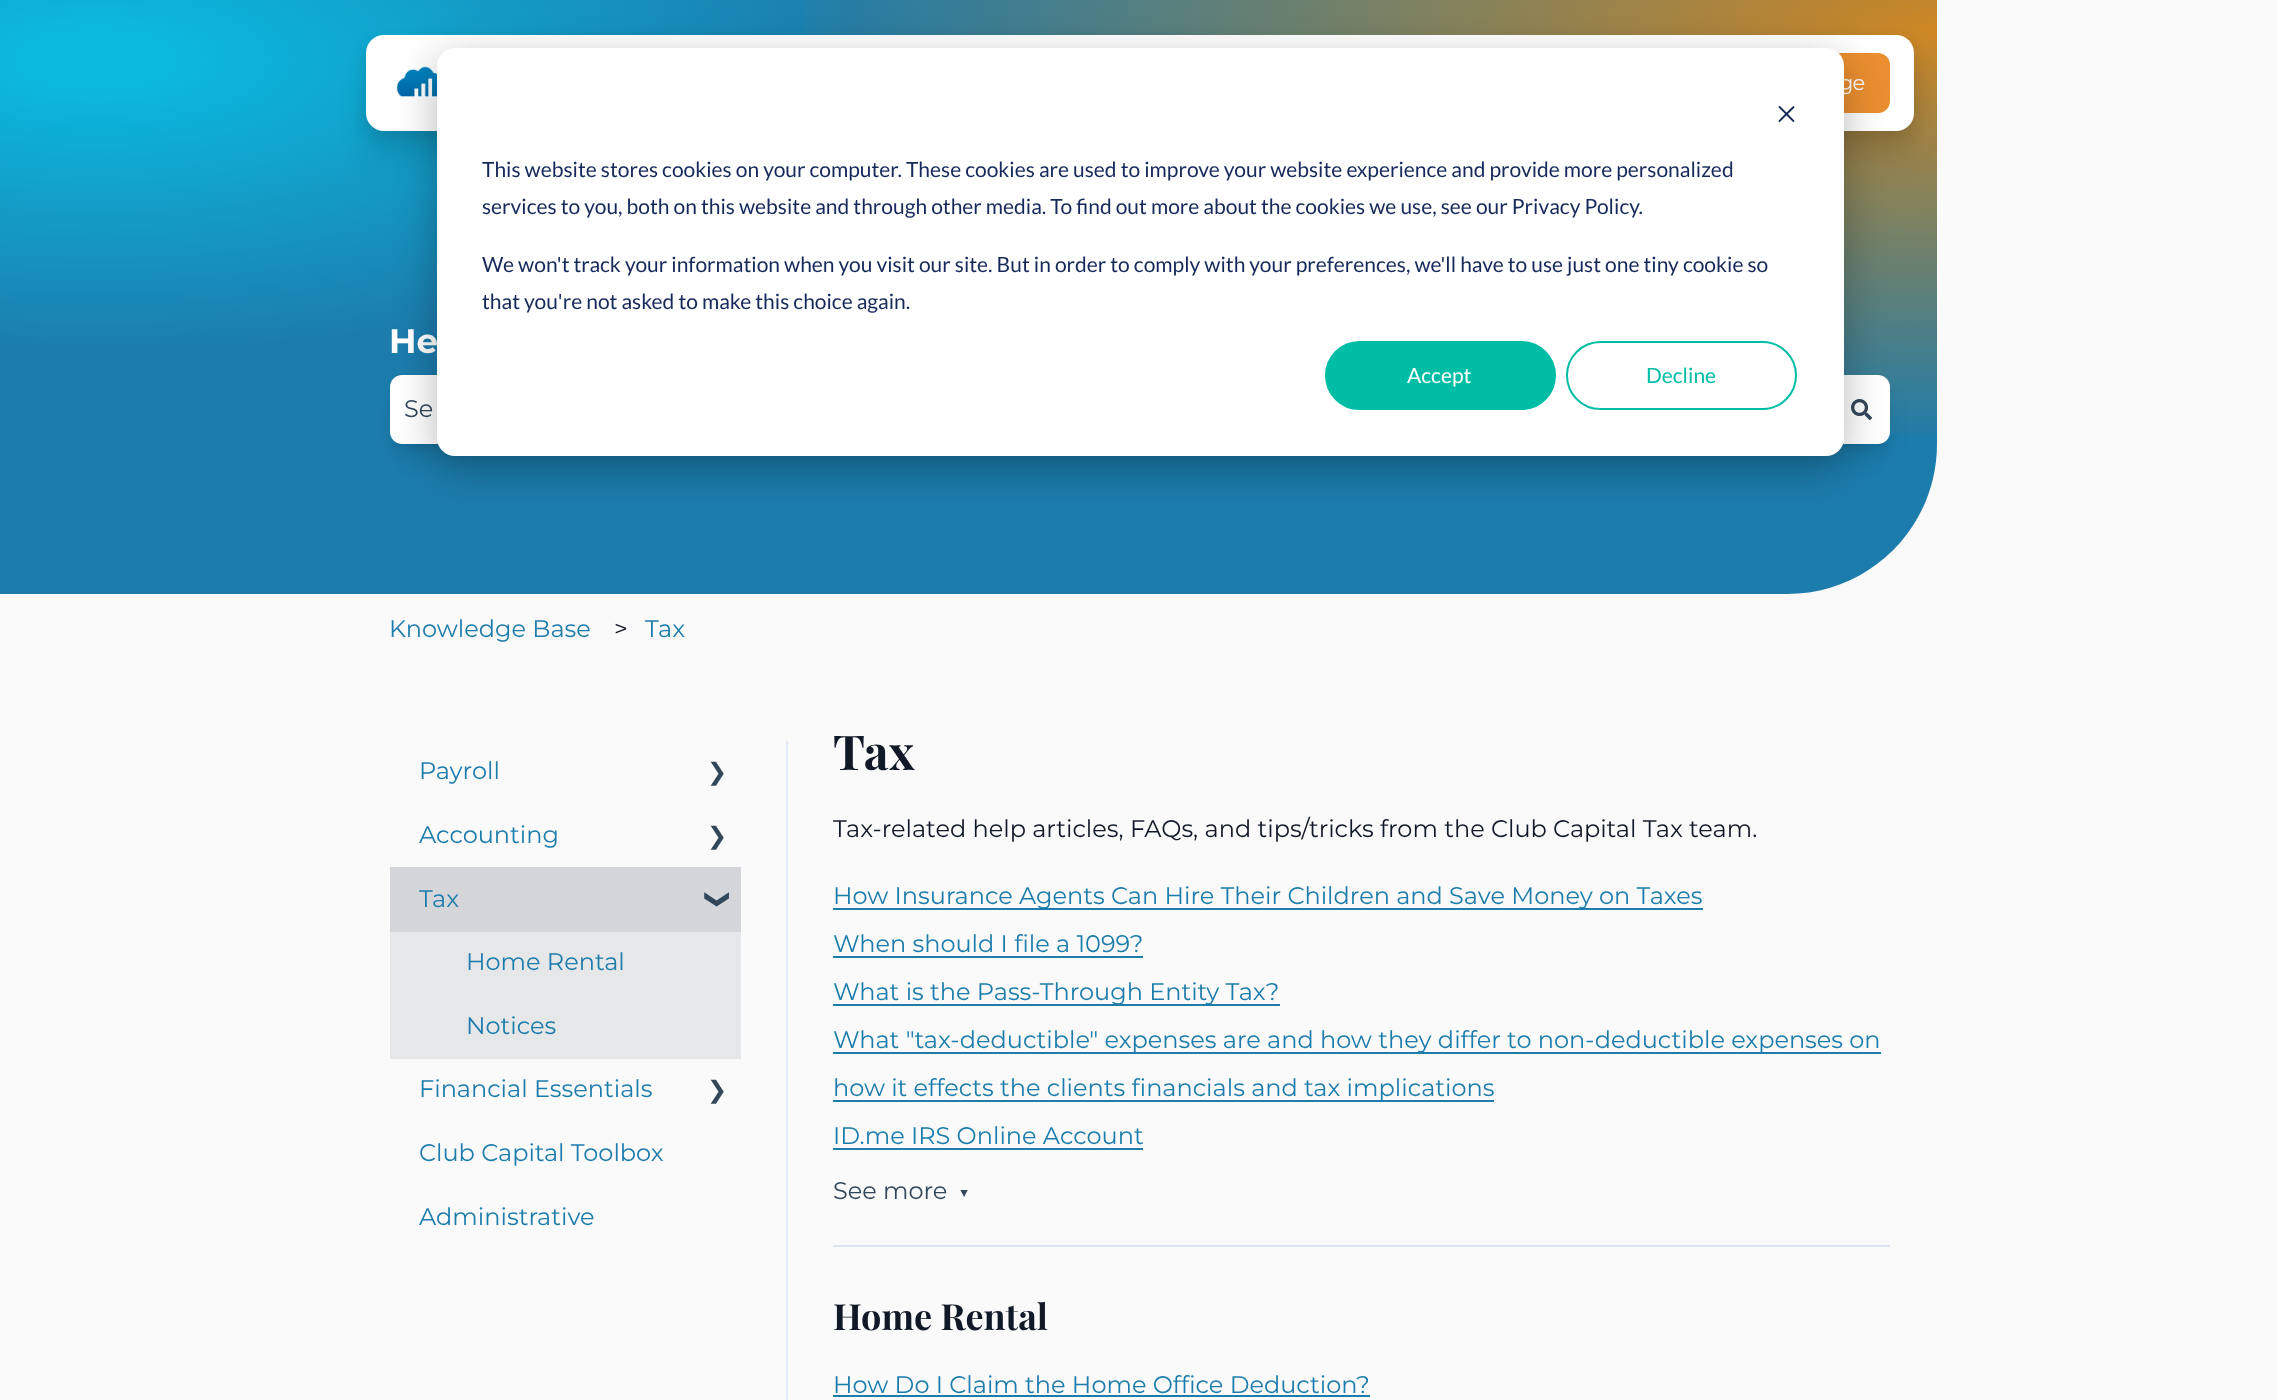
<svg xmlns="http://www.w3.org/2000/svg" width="2278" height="1400">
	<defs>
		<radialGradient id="g1" gradientUnits="userSpaceOnUse" cx="0" cy="0" r="1" gradientTransform="matrix(775 0 0 297 97 59)"><stop offset="0.1" stop-color="#00E0FF" stop-opacity="0.6" /><stop offset="1" stop-color="#00E0FF" stop-opacity="0" /></radialGradient>
		<radialGradient id="g2" gradientUnits="userSpaceOnUse" cx="0" cy="0" r="1" gradientTransform="matrix(1162 0 0 416 1937 30)"><stop offset="0" stop-color="#FA8900" stop-opacity="0.8" /><stop offset="1" stop-color="#FA8900" stop-opacity="0" /></radialGradient>
	</defs>
	<rect width="100%" height="100%" fill="#FAFAFA" />
	<path d="M0 0H1937V444C1937 527 1870 594 1787 594H0Z" fill="#1C7CAC" />
	<rect x="0" y="0" width="841" height="345" fill="url(#g1)" />
	<rect x="805" y="0" width="1132" height="434" fill="url(#g2)" />
	<rect x="366" y="42" width="1548" height="96" rx="18" fill="#000000" fill-opacity="0.1" filter="blur(7.5px)" />
	<rect x="366" y="62" width="1548" height="96" rx="18" fill="#000000" fill-opacity="0.09" filter="blur(13.5px)" />
	<rect x="366" y="35" width="1548" height="96" rx="18" fill="#FFFFFF" />
	<image x="396" y="66" width="41" height="31" href="assets/img1.png" />
	<rect x="1529" y="53" width="361" height="60" rx="12" fill="#EB8F30" />
	<text x="1839" y="90" font-family="Montserrat" font-size="21" letter-spacing="-1" fill="#FFFFFF">ge</text>
	<text x="389" y="353" font-family="Montserrat" font-size="34" font-weight="700" fill="#FFFFFF">He</text>
	<rect x="396" y="387" width="1431" height="57" rx="6" fill="#000000" fill-opacity="0.1" filter="blur(4.5px)" />
	<rect x="395" y="395" width="1434" height="60" rx="8" fill="#000000" fill-opacity="0.1" filter="blur(11px)" />
	<path d="M402 375H1833V444H402C395.5 444 390 438.5 390 432V387C390 380.5 395.5 375 402 375Z" fill="#FFFFFF" />
	<text x="404" y="417" font-family="Montserrat" font-size="24" fill="#33475B">Se</text>
	<rect x="1839" y="387" width="45" height="57" rx="6" fill="#000000" fill-opacity="0.1" filter="blur(4.5px)" />
	<rect x="1838" y="395" width="48" height="60" rx="8" fill="#000000" fill-opacity="0.1" filter="blur(11px)" />
	<path d="M1833 375H1878C1884.5 375 1890 380.5 1890 387V432C1890 438.5 1884.5 444 1878 444H1833Z" fill="#FFFFFF" />
	<image x="1851" y="399" width="21" height="21" href="assets/img2.png" />
	<text x="389" y="637" font-family="Montserrat" font-size="24" fill="#1C7CAC">Knowledge Base</text>
	<text x="614" y="637" font-family="Montserrat" font-size="24" fill="#111827">&gt;</text>
	<text x="645" y="637" font-family="Montserrat" font-size="24" fill="#1C7CAC">Tax</text>
	<rect x="786" y="741" width="2" height="659" fill="#E2EBF4" />
	<text x="419" y="779" font-family="Montserrat" font-size="24" fill="#1C7CAC">Payroll</text>
	<text x="707" y="780" font-family="DejaVu Sans" font-size="24" fill="#33475B">❯</text>
	<text x="419" y="843" font-family="Montserrat" font-size="24" fill="#1C7CAC">Accounting</text>
	<text x="707" y="844" font-family="DejaVu Sans" font-size="24" fill="#33475B">❯</text>
	<rect x="390" y="932" width="351" height="127" fill="#E6E7E9" />
	<rect x="390" y="867" width="351" height="65" fill="#D4D6DA" />
	<text x="419" y="907" font-family="Montserrat" font-size="24" fill="#1C7CAC">Tax</text>
	<text x="710" y="889" transform="rotate(90 710 889)" font-family="DejaVu Sans" font-size="24" font-weight="700" fill="#33475B">❯</text>
	<g font-family="Montserrat" font-size="24" fill="#1C7CAC">
		<text x="466" y="970">Home Rental</text>
		<text x="466" y="1034">Notices</text>
		<text x="419" y="1097">Financial Essentials</text>
	</g>
	<text x="707" y="1098" font-family="DejaVu Sans" font-size="24" fill="#33475B">❯</text>
	<g font-family="Montserrat" font-size="24" fill="#1C7CAC">
		<text x="419" y="1161">Club Capital Toolbox</text>
		<text x="419" y="1225">Administrative</text>
	</g>
	<rect x="833" y="1245" width="1057" height="2" fill="#D9E5F0" />
	<text x="833" y="770" font-family="Playfair Display" font-size="48" font-weight="700" fill="#111827">Tax</text>
	<text x="833" y="837" font-family="Montserrat" font-size="24" fill="#111827">Tax-related help articles, FAQs, and tips/tricks from the Club Capital Tax team.</text>
	<rect x="833" y="908" width="870" height="2" fill="#1C7CAC" />
	<g font-family="Montserrat" font-size="24" fill="#1C7CAC">
		<text x="833" y="904">How Insurance Agents Can Hire Their Children and Save Money on Taxes</text>
		<text x="833" y="952">When should I file a 1099?</text>
	</g>
	<rect x="833" y="956" width="310" height="2" fill="#1C7CAC" />
	<rect x="833" y="1004" width="447" height="2" fill="#1C7CAC" />
	<text x="833" y="1000" font-family="Montserrat" font-size="24" fill="#1C7CAC">What is the Pass-Through Entity Tax?</text>
	<rect x="833" y="1052" width="1048" height="2" fill="#1C7CAC" />
	<text x="833" y="1048" font-family="Montserrat" font-size="24" fill="#1C7CAC">What "tax-deductible" expenses are and how they differ to non-deductible expenses on</text>
	<rect x="833" y="1100" width="661" height="2" fill="#1C7CAC" />
	<g font-family="Montserrat" font-size="24" fill="#1C7CAC">
		<text x="833" y="1096">how it effects the clients financials and tax implications</text>
		<text x="833" y="1144">ID.me IRS Online Account</text>
	</g>
	<rect x="833" y="1148" width="310" height="2" fill="#1C7CAC" />
	<text x="833" y="1199" font-family="Montserrat" font-size="24" fill="#33475B">See more</text>
	<text x="959" y="1198" font-family="Montserrat" font-size="17" fill="#33475B">▼</text>
	<text x="833" y="1330" font-family="Playfair Display" font-size="36" font-weight="700" fill="#111827">Home Rental</text>
	<text x="833" y="1393" font-family="Montserrat" font-size="24" fill="#1C7CAC">How Do I Claim the Home Office Deduction?</text>
	<rect x="833" y="1395" width="537" height="2" fill="#1C7CAC" />
	<rect x="437" y="60" width="1407" height="408" rx="18" fill="#000000" fill-opacity="0.28" filter="blur(21px)" />
	<rect x="437" y="48" width="1407" height="408" rx="18" fill="#FFFFFF" />
	<image x="1778" y="106" width="17" height="16" href="assets/img3.png" />
	<g font-family="Lato" font-size="21" fill="#15295A">
		<text x="482" y="177">This website stores cookies on your computer. These cookies are used to improve your website experience and provide more personalized</text>
		<text x="482" y="214">services to you, both on this website and through other media. To find out more about the cookies we use, see our Privacy Policy.</text>
		<text x="482" y="272">We won't track your information when you visit our site. But in order to comply with your preferences, we'll have to use just one tiny cookie so</text>
		<text x="482" y="309">that you're not asked to make this choice again.</text>
	</g>
	<rect x="1326" y="342" width="229" height="67" rx="33.5" fill="#00BDA5" stroke="#00BDA5" stroke-width="2" />
	<text x="1407" y="383" font-family="Lato" font-size="21" fill="#FFFFFF">Accept</text>
	<rect x="1567" y="342" width="229" height="67" rx="33.5" fill="none" stroke="#00BDA5" stroke-width="2" />
	<text x="1646" y="383" font-family="Lato" font-size="21" fill="#00BDA5">Decline</text>
</svg>
